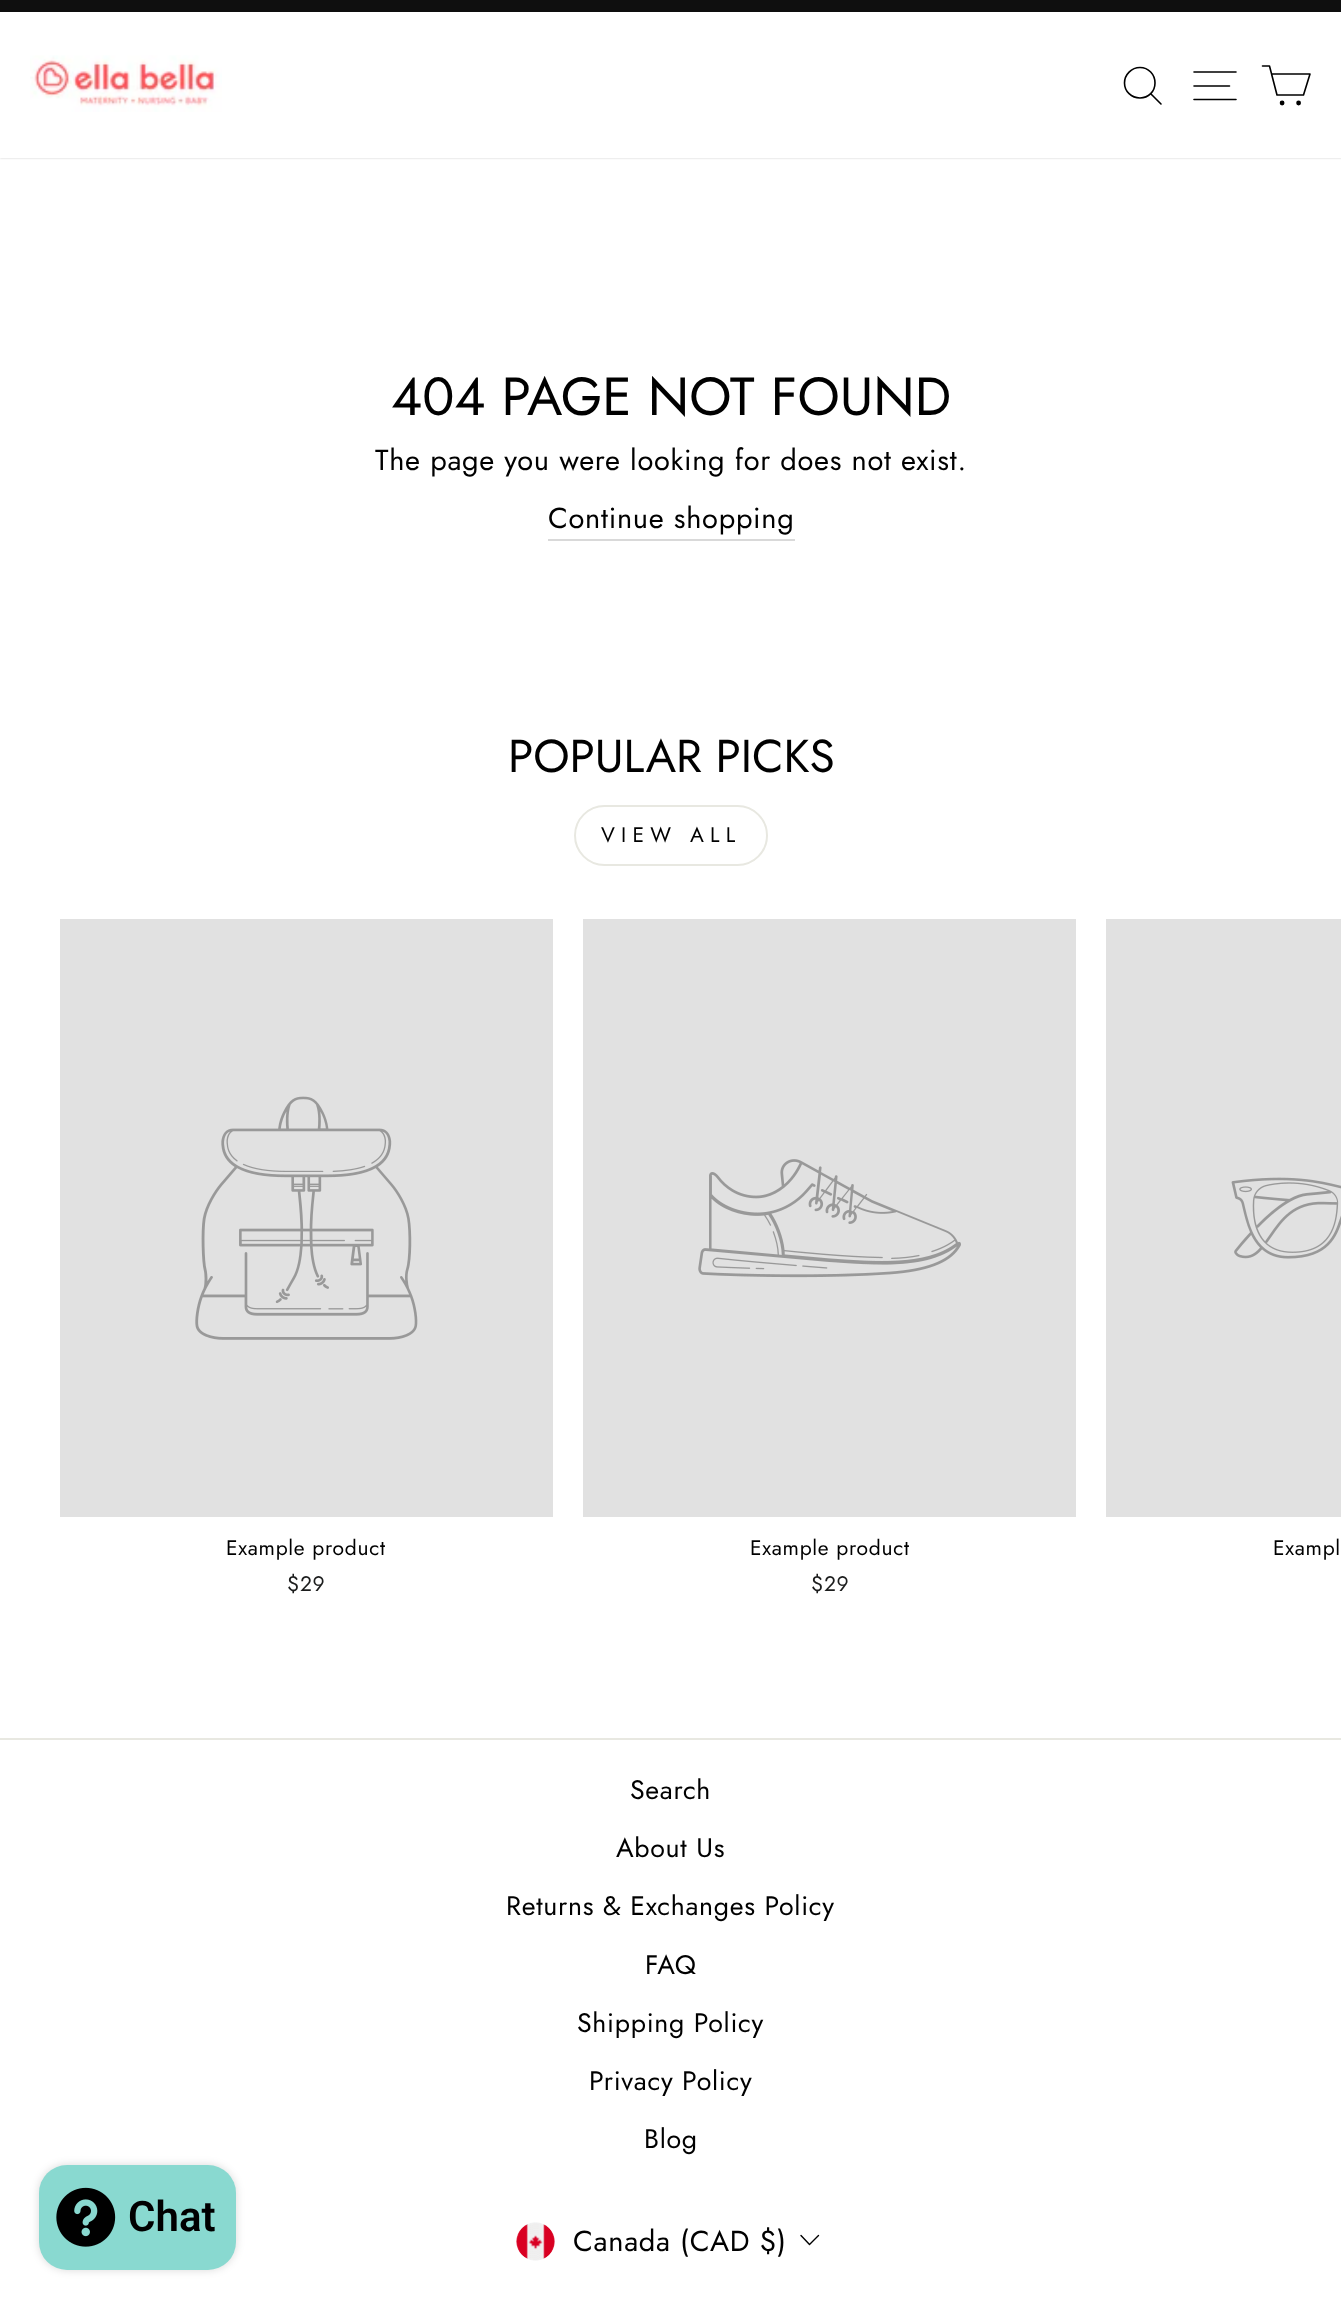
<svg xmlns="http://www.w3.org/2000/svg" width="1341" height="2305">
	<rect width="100%" height="100%" fill="#FFFFFF" />
	<rect x="39" y="2165" width="197" height="105" rx="28" fill="#000000" fill-opacity="0.15" filter="blur(4.5px)" />
	<rect x="39" y="2165" width="197" height="105" rx="28" fill="#89D9D0" />
	<image x="56" y="2187" width="60" height="60" href="assets/img1.png" />
	<text x="128" y="2231" font-family="Roboto" font-size="42" font-weight="600" fill="#000000">Chat</text>
	<rect x="0" y="0" width="1341" height="12" fill="#0F0F0F" />
	<rect x="0" y="12" width="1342" height="146" fill="#000000" fill-opacity="0.2" filter="blur(1px)" />
	<rect x="0" y="12" width="1341" height="146" fill="#FFFFFF" />
	<image x="30" y="55" width="192" height="57" href="assets/img2.png" />
	<path d="M1155 83C1155 91.5 1148.5 98 1140 98C1131.5 98 1124.5 91.5 1124.5 83C1124.5 74.5 1131.5 67.5 1140 67.5C1148.5 67.5 1155 74.5 1155 83ZM1161 104L1151 94" fill="none" stroke="#000000" stroke-width="1.6" stroke-linecap="round" stroke-linejoin="round" />
	<path d="M1194 72H1236M1194 86H1229.5M1194 99.5H1236" fill="none" stroke="#000000" stroke-width="1.6" stroke-linecap="round" stroke-linejoin="round" />
	<path d="M1271.5 74H1310L1303.5 95H1277L1269.5 66H1262.5" fill="none" stroke="#000000" stroke-width="1.6" stroke-linecap="round" stroke-linejoin="round" />
	<circle cx="1282.1" cy="103" r="1.6" fill="#000000" stroke="#000000" stroke-width="1.6" />
	<circle cx="1298.6" cy="103" r="1.6" fill="#000000" stroke="#000000" stroke-width="1.6" />
	<text x="391" y="415" font-family="Jost" font-size="53.5" fill="#000000">404 PAGE NOT FOUND</text>
	<text x="375" y="470" font-family="Jost" font-size="29" letter-spacing="0.7" fill="#000000">The page you were looking for does not exist.</text>
	<rect x="548" y="539" width="247" height="2" fill="#D9D9D9" />
	<text x="548" y="528" font-family="Jost" font-size="29" letter-spacing="0.7" fill="#000000">Continue shopping</text>
	<text x="508" y="772" font-family="Jost" font-size="46" fill="#000000">POPULAR PICKS</text>
	<rect x="575" y="806" width="192" height="59" rx="29.5" fill="none" stroke="#E8E8E1" stroke-width="2" />
	<text x="601" y="842" font-family="Jost" font-size="21" letter-spacing="6.25" fill="#000000">VIEW ALL</text>
	<rect x="60" y="919" width="493" height="598" fill="#E1E1E1" />
	<image x="195" y="1096" width="223" height="244" href="assets/img3.png" />
	<text x="226" y="1555" font-family="Jost" font-size="21" letter-spacing="0.7" fill="#000000">Example product</text>
	<text x="287" y="1591" font-family="Jost" font-size="21" letter-spacing="0.7" fill="#1C1D1D">$29</text>
	<rect x="583" y="919" width="493" height="598" fill="#E1E1E1" />
	<image x="698" y="1159" width="263" height="119" href="assets/img4.png" />
	<text x="750" y="1555" font-family="Jost" font-size="21" letter-spacing="0.7" fill="#000000">Example product</text>
	<text x="811" y="1591" font-family="Jost" font-size="21" letter-spacing="0.7" fill="#1C1D1D">$29</text>
	<rect x="1106" y="919" width="235" height="598" fill="#E1E1E1" />
	<image x="1231" y="1177" width="110" height="82" href="assets/img5.png" />
	<text x="1273" y="1555" font-family="Jost" font-size="21" letter-spacing="0.7" fill="#000000">Exampl</text>
	<rect x="0" y="1738" width="1341" height="2" fill="#E8E8E1" />
	<g font-family="Jost" font-size="26.75" letter-spacing="0.7" fill="#000000">
		<text x="630" y="1799">Search</text>
		<text x="616" y="1857">About Us</text>
		<text x="506" y="1915">Returns &amp; Exchanges Policy</text>
		<text x="645" y="1974">FAQ</text>
		<text x="577" y="2032">Shipping Policy</text>
		<text x="589" y="2090">Privacy Policy</text>
		<text x="644" y="2148">Blog</text>
	</g>
	<image x="516" y="2222" width="39" height="39" href="assets/img6.png" />
	<text x="573" y="2251" font-family="Jost" font-size="29" letter-spacing="0.7" fill="#000000">Canada (CAD $)</text>
	<path d="M801 2235.5L809.5 2244.5L818.5 2235.5" fill="none" stroke="#000000" stroke-width="1.4" stroke-linecap="round" stroke-linejoin="round" />
</svg>
